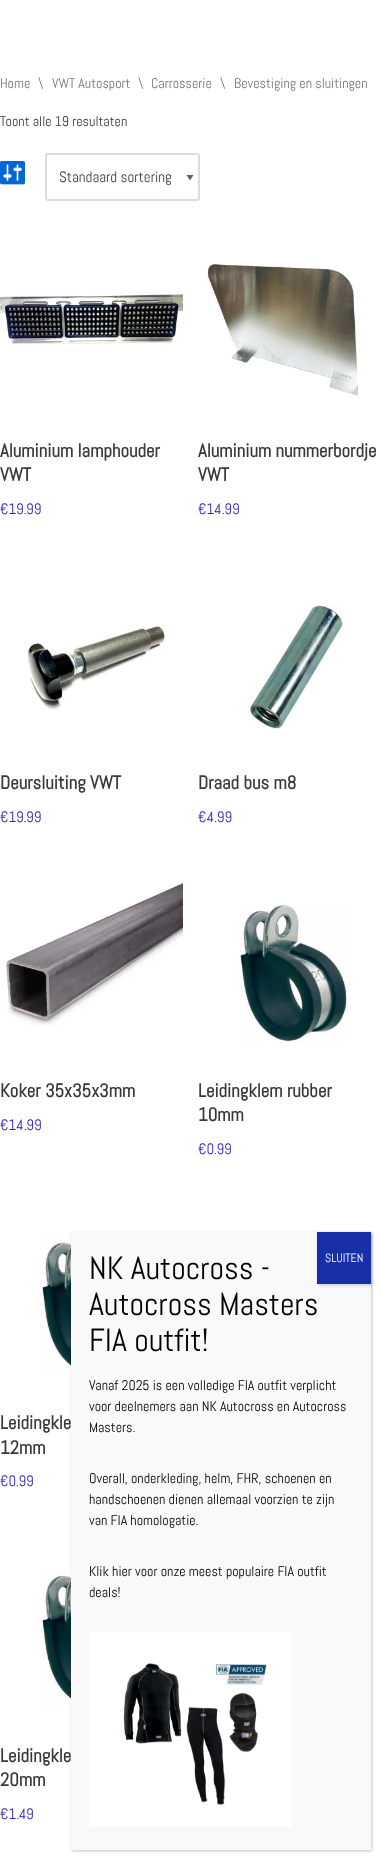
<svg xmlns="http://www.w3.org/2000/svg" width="381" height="1860">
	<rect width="100%" height="100%" fill="#FFFFFF" />
	<g font-family="Abel" font-size="14" fill="#777777">
		<text x="0" y="88">Home</text>
		<text x="38" y="88">\</text>
		<text x="52" y="88">VWT Autosport</text>
		<text x="138" y="88">\</text>
		<text x="151" y="88">Carrosserie</text>
		<text x="220" y="88">\</text>
		<text x="234" y="88">Bevestiging en sluitingen</text>
	</g>
	<text x="0" y="126" font-family="Abel" font-size="14" fill="#393939">Toont alle 19 resultaten</text>
	<image x="0" y="161" width="25" height="24" href="assets/img1.png" />
	<path d="M193.5 175L190 180.5L186.5 175Z" fill="#626262" />
	<rect x="46" y="154" width="153" height="46" rx="2" fill="none" stroke="#DDDDDD" stroke-width="2" />
	<text x="59" y="182" font-family="Abel" font-size="15" fill="#393939">Standaard sortering</text>
	<image x="0" y="293" width="183" height="53" href="assets/img2.png" />
	<g font-family="Abel" font-size="18.75" font-weight="700" fill="#393939">
		<text x="0" y="457">Aluminium lamphouder</text>
		<text x="0" y="481">VWT</text>
	</g>
	<text x="0" y="514" font-family="Abel" font-size="15" fill="#2F26AF">€19.99</text>
	<image x="207" y="264" width="151" height="132" href="assets/img3.png" />
	<g font-family="Abel" font-size="18.75" font-weight="700" fill="#393939">
		<text x="198" y="457">Aluminium nummerbordje</text>
		<text x="198" y="481">VWT</text>
	</g>
	<text x="198" y="514" font-family="Abel" font-size="15" fill="#2F26AF">€14.99</text>
	<image x="27" y="625" width="139" height="85" href="assets/img4.png" />
	<text x="0" y="789" font-family="Abel" font-size="18.75" font-weight="700" fill="#393939">Deursluiting VWT</text>
	<text x="0" y="822" font-family="Abel" font-size="15" fill="#2F26AF">€19.99</text>
	<image x="249" y="605" width="94" height="124" href="assets/img5.png" />
	<text x="198" y="789" font-family="Abel" font-size="18.75" font-weight="700" fill="#393939">Draad bus m8</text>
	<text x="198" y="822" font-family="Abel" font-size="15" fill="#2F26AF">€4.99</text>
	<image x="6" y="883" width="177" height="143" href="assets/img6.png" />
	<text x="0" y="1097" font-family="Abel" font-size="18.75" font-weight="700" fill="#393939">Koker 35x35x3mm</text>
	<text x="0" y="1130" font-family="Abel" font-size="15" fill="#2F26AF">€14.99</text>
	<image x="239" y="904" width="110" height="139" href="assets/img7.png" />
	<g font-family="Abel" font-size="18.75" font-weight="700" fill="#393939">
		<text x="198" y="1097">Leidingklem rubber</text>
		<text x="198" y="1121">10mm</text>
	</g>
	<text x="198" y="1154" font-family="Abel" font-size="15" fill="#2F26AF">€0.99</text>
	<image x="41" y="1236" width="30" height="139" href="assets/img8.png" />
	<g font-family="Abel" font-size="18.75" font-weight="700" fill="#393939">
		<text x="0" y="1429">Leidingkle</text>
		<text x="0" y="1454">12mm</text>
	</g>
	<text x="0" y="1486" font-family="Abel" font-size="15" fill="#2F26AF">€0.99</text>
	<image x="41" y="1569" width="30" height="139" href="assets/img9.png" />
	<g font-family="Abel" font-size="18.75" font-weight="700" fill="#393939">
		<text x="0" y="1762">Leidingkle</text>
		<text x="0" y="1786">20mm</text>
	</g>
	<text x="0" y="1819" font-family="Abel" font-size="15" fill="#2F26AF">€1.49</text>
	<rect x="72" y="1233" width="300" height="618" fill="#020202" fill-opacity="0.23" filter="blur(1.5px)" />
	<rect x="71" y="1232" width="300" height="618" fill="#F9F9F9" />
	<g font-family="Abel" font-size="32" fill="#000000">
		<text x="89" y="1279">NK Autocross -</text>
		<text x="89" y="1315">Autocross Masters</text>
		<text x="89" y="1351">FIA outfit!</text>
	</g>
	<rect x="318" y="1233" width="54" height="52" fill="#020202" fill-opacity="0.23" filter="blur(1.5px)" />
	<rect x="317" y="1232" width="54" height="52" fill="#172FA7" />
	<text x="325" y="1262" font-family="Abel" font-size="12" fill="#FFFFFF">SLUITEN</text>
	<g font-family="Abel" font-size="14" fill="#000000">
		<text x="89" y="1390">Vanaf 2025 is een volledige FIA outfit verplicht</text>
		<text x="89" y="1411">voor deelnemers aan NK Autocross en Autocross</text>
		<text x="89" y="1432">Masters.</text>
		<text x="89" y="1483">Overall, onderkleding, helm, FHR, schoenen en</text>
		<text x="89" y="1504">handschoenen dienen allemaal voorzien te zijn</text>
		<text x="89" y="1525">van FIA homologatie.</text>
		<text x="89" y="1576">Klik hier voor onze meest populaire FIA outfit</text>
		<text x="89" y="1597">deals!</text>
	</g>
	<image x="89" y="1632" width="202" height="195" href="assets/img10.png" />
</svg>
